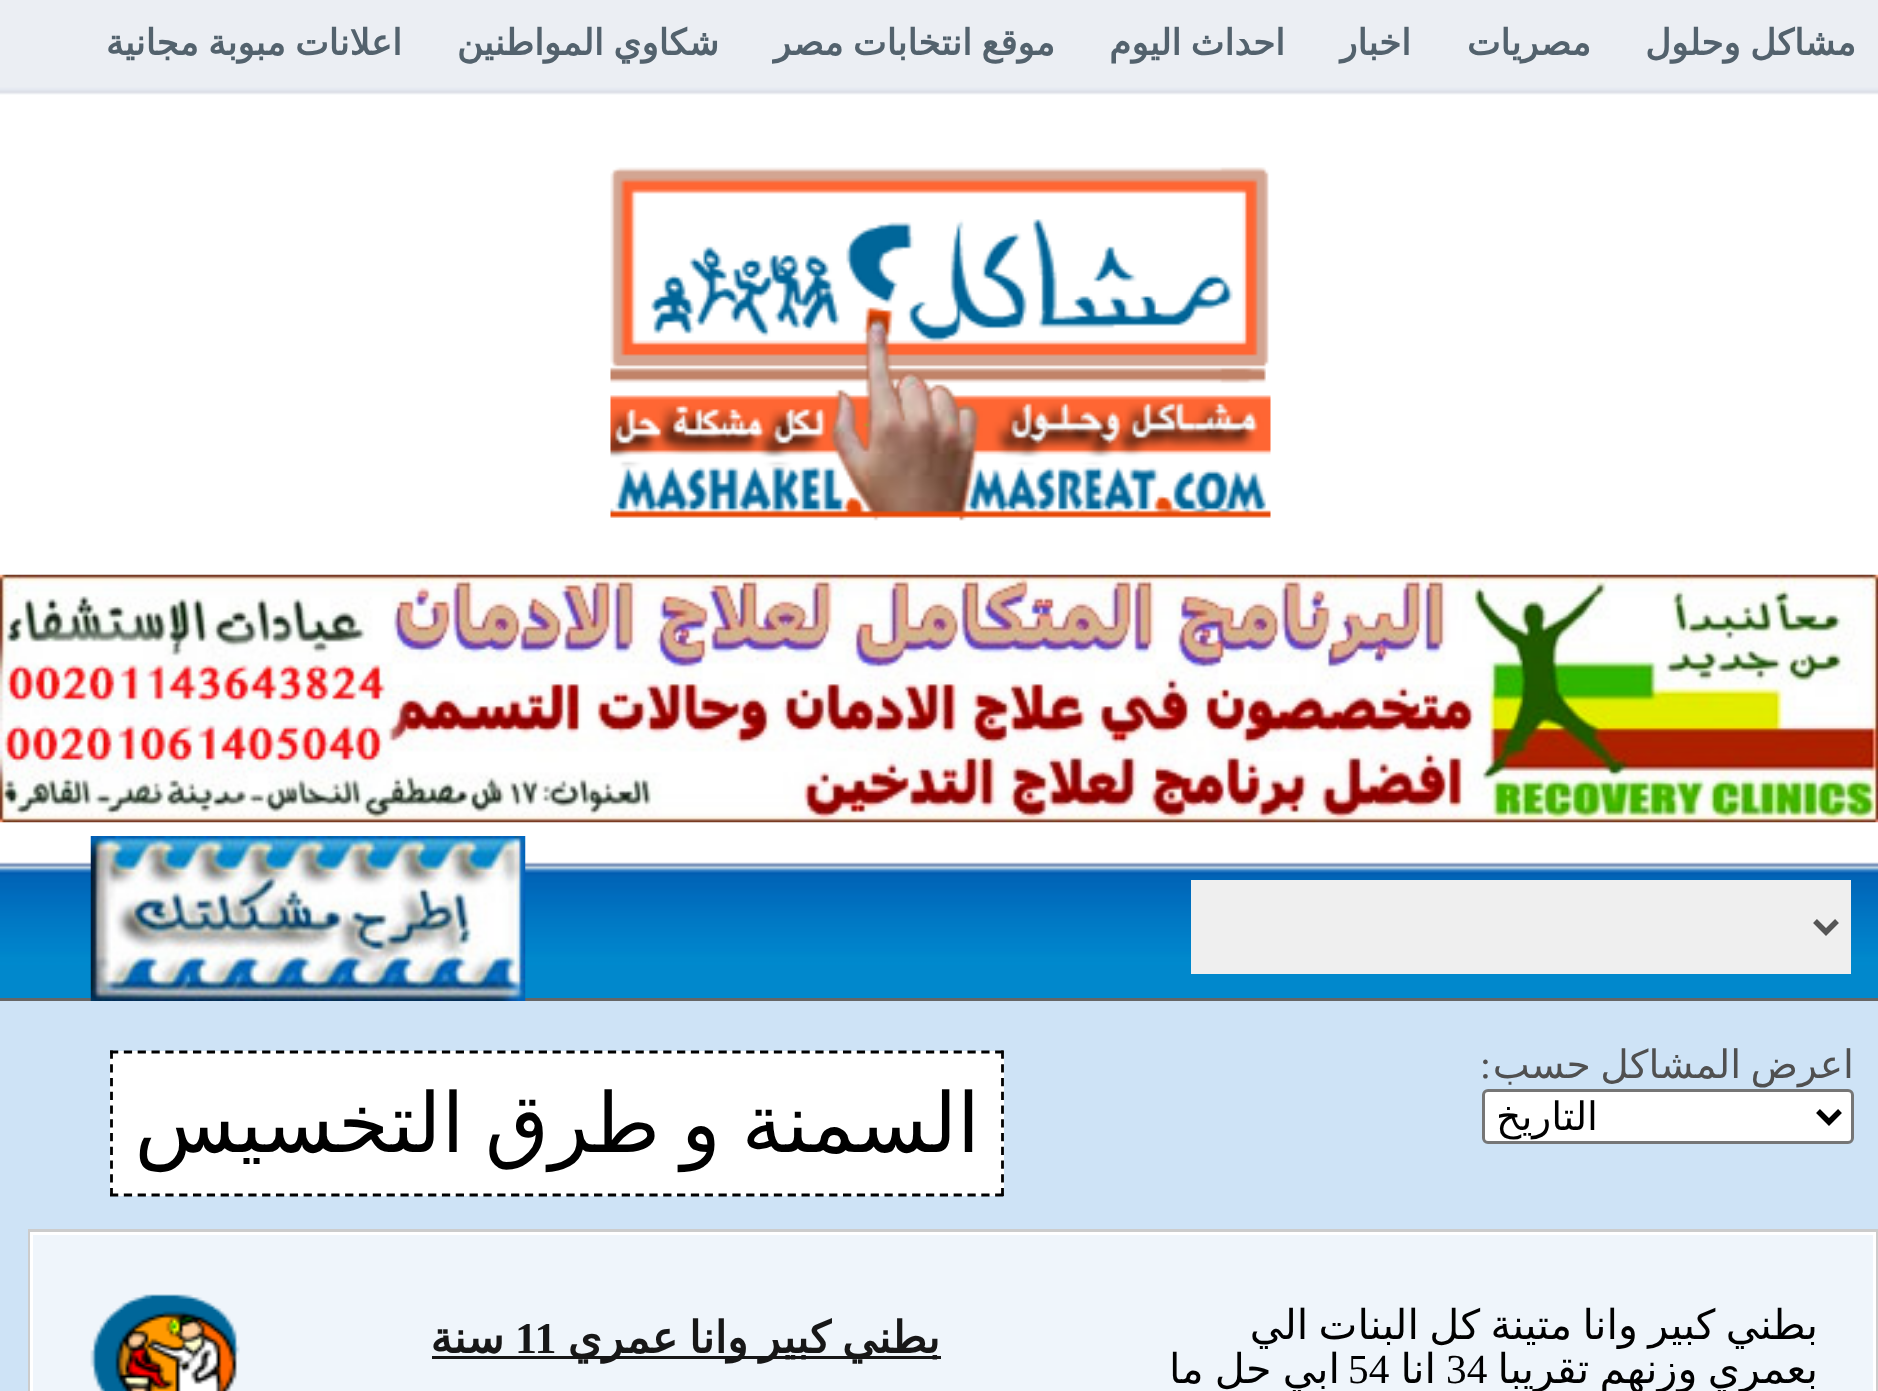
<svg xmlns="http://www.w3.org/2000/svg" width="1878" height="1391">
	<rect width="100%" height="100%" fill="#FFFFFF" />
	<image x="0" y="0" width="1878" height="95" href="assets/img1.png" />
	<g font-family="DejaVu Sans" font-size="35.75" font-weight="700" direction="rtl" fill="#53626D">
		<text x="1856" y="55" word-spacing="-2">مشاكل وحلول</text>
		<text x="1591" y="55">مصريات</text>
		<text x="1411" y="55">اخبار</text>
		<text x="1285" y="55" word-spacing="-2">احداث اليوم</text>
		<text x="1055" y="55" word-spacing="-2">موقع انتخابات مصر</text>
		<text x="719" y="55" word-spacing="-2">شكاوي المواطنين</text>
		<text x="402" y="55" word-spacing="-2">اعلانات مبوبة مجانية</text>
	</g>
	<image x="610" y="167" width="661" height="354" href="assets/img2.png" />
	<image x="0" y="574" width="1878" height="249" href="assets/img3.png" />
	<image x="0" y="862" width="1878" height="136" href="assets/img4.png" />
	<rect x="0" y="998" width="1878" height="3" fill="#666666" />
	<rect x="1191" y="880" width="660" height="94" fill="#EFEFEF" />
	<path d="M1815 921L1826 932L1837 921" fill="none" stroke="#555555" stroke-width="5.5" />
	<image x="90" y="836" width="436" height="165" href="assets/img5.png" />
	<rect x="0" y="1001" width="1878" height="390" fill="#CEE3F6" />
	<text x="1854" y="1078" word-spacing="-3" font-family="DejaVu Sans" font-size="39.25" direction="rtl" fill="#505050">اعرض المشاكل حسب</text>
	<text x="1491" y="1078" font-family="Liberation Serif" font-size="39.25" direction="rtl" fill="#505050">:</text>
	<rect x="1483.5" y="1090.5" width="369" height="52" rx="4.5" fill="#FFFFFF" stroke="#767676" stroke-width="3" />
	<path d="M1818 1111L1829 1122L1840 1111" fill="none" stroke="#000000" stroke-width="5.5" />
	<text x="1598" y="1130" font-family="DejaVu Sans" font-size="39.25" direction="rtl" fill="#000000">التاريخ</text>
	<rect x="110" y="1051" width="894" height="145" fill="#FFFFFF" />
	<path d="M110 1052H1004" fill="none" stroke="#000000" stroke-width="2.8" stroke-dasharray="8.25 5.58" />
	<path d="M1002.5 1050.5V1196" fill="none" stroke="#000000" stroke-width="2.8" stroke-dasharray="8.25 5.5" />
	<path d="M110 1195H1004" fill="none" stroke="#000000" stroke-width="2.8" stroke-dasharray="8.25 5.58" />
	<path d="M111.5 1050.5V1196" fill="none" stroke="#000000" stroke-width="2.8" stroke-dasharray="8.25 5.5" />
	<text x="980" y="1152" word-spacing="-5.5" font-family="DejaVu Sans" font-size="82.5" direction="rtl" fill="#000000">السمنة و طرق التخسيس</text>
	<rect x="29.5" y="1230.5" width="1847" height="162" fill="none" stroke="#CCCCCC" stroke-width="3" />
	<rect x="31.5" y="1233.5" width="1843" height="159" fill="none" stroke="#FFFFFF" stroke-width="3" />
	<rect x="33" y="1235" width="1840" height="156" fill="#EFF5FB" />
	<g font-family="DejaVu Sans" font-size="41.25" direction="rtl" fill="#000000">
		<text x="1818" y="1339" word-spacing="-2.75">بطني كبير وانا متينة كل البنات الي</text>
		<text x="1818" y="1383" word-spacing="-2.75">بعمري وزنهم تقريبا</text>
	</g>
	<text x="1446" y="1383" font-family="Liberation Serif" font-size="41.25" fill="#000000">34</text>
	<text x="1436" y="1383" font-family="DejaVu Sans" font-size="41.25" direction="rtl" fill="#000000">انا</text>
	<text x="1348" y="1383" font-family="Liberation Serif" font-size="41.25" fill="#000000">54</text>
	<text x="1340" y="1383" word-spacing="-2" font-family="DejaVu Sans" font-size="41.25" direction="rtl" fill="#000000">ابي حل ما</text>
	<rect x="432" y="1356" width="509" height="3" fill="#171717" />
	<text x="940" y="1353" word-spacing="-3" font-family="DejaVu Sans" font-size="44" font-weight="700" direction="rtl" fill="#171717">بطني كبير وانا عمري</text>
	<text x="515" y="1353" font-family="Liberation Serif" font-size="44" font-weight="700" fill="#171717">11</text>
	<text x="504" y="1353" font-family="DejaVu Sans" font-size="44" font-weight="700" direction="rtl" fill="#171717">سنة</text>
	<image x="90" y="1294" width="150" height="97" href="assets/img6.png" />
</svg>
